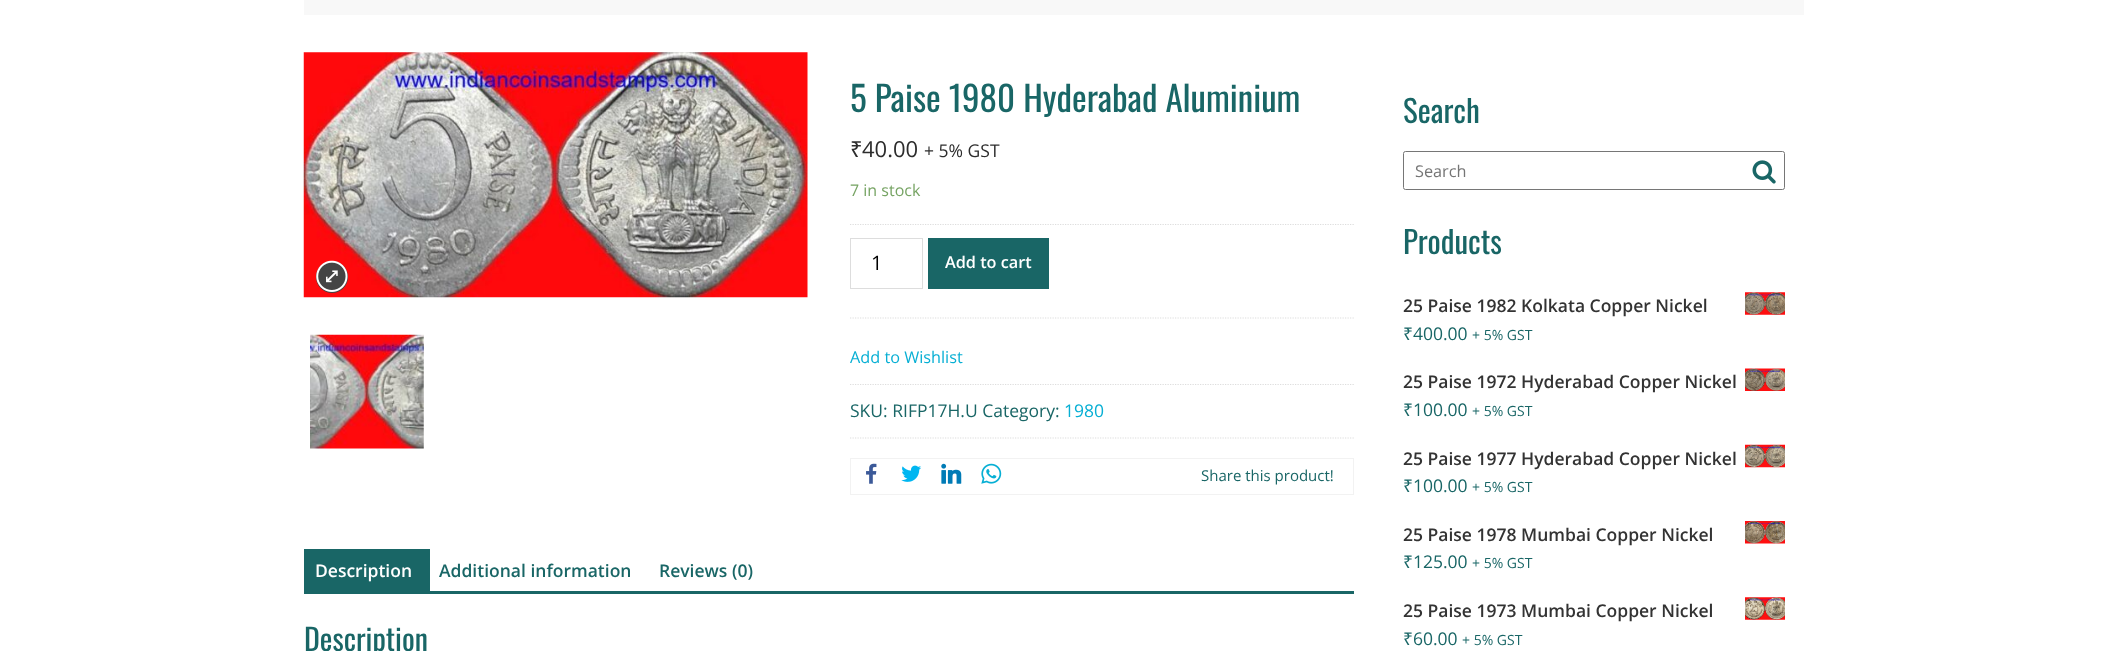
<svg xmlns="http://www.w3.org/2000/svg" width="2107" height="651">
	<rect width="100%" height="100%" fill="#FFFFFF" />
	<rect x="304" y="0" width="1500" height="15" fill="#F8F8F8" />
	<image x="303" y="52" width="505" height="246" href="assets/img1.png" />
	<circle cx="332" cy="277" r="16" fill="#444444" />
	<image x="316" y="260" width="32" height="32" href="assets/img2.png" />
	<image x="310" y="334" width="114" height="115" href="assets/img3.png" />
	<text x="850" y="112" font-family="Oswald" font-size="35" fill="#196666">5 Paise 1980 Hyderabad Aluminium</text>
	<text x="850" y="157" font-family="Noto Sans" font-size="22" fill="#2D2D2D">₹</text>
	<text x="862" y="157" font-family="Open Sans" font-size="22" fill="#2D2D2D">40.00</text>
	<text x="924" y="157" font-family="Open Sans" font-size="17.5" fill="#2D2D2D">+ 5% GST</text>
	<text x="850" y="196" font-family="Open Sans" font-size="16" fill="#77A464">7 in stock</text>
	<path d="M850 224.5H1354" fill="none" stroke="#DDDDDD" stroke-width="1.2" stroke-dasharray="1.25 1.25" />
	<path d="M850 318H1354" fill="none" stroke="#DDDDDD" stroke-width="1.2" stroke-dasharray="1.25 1.25" />
	<rect x="850.5" y="238.5" width="72" height="50" fill="none" stroke="#DDDDDD" />
	<text x="871" y="270" font-family="Open Sans" font-size="20" fill="#000000">1</text>
	<rect x="928" y="238" width="121" height="51" fill="#196666" />
	<text x="945" y="268" font-family="Open Sans" font-size="16.25" font-weight="600" fill="#FFFFFF">Add to cart</text>
	<text x="850" y="363" font-family="Open Sans" font-size="16.25" fill="#07AFD4">Add to Wishlist</text>
	<path d="M850 384.5H1354" fill="none" stroke="#DDDDDD" stroke-width="1.2" stroke-dasharray="1.25 1.25" />
	<path d="M850 438H1354" fill="none" stroke="#DDDDDD" stroke-width="1.2" stroke-dasharray="1.25 1.25" />
	<text x="850" y="417" font-family="Open Sans" font-size="17.5" fill="#196666">SKU: RIFP17H.U Category:</text>
	<text x="1064" y="417" font-family="Open Sans" font-size="17.5" fill="#07AFD4">1980</text>
	<rect x="850.5" y="458.5" width="503" height="36" fill="none" stroke="#F2F2F2" />
	<image x="866" y="463" width="11" height="21" href="assets/img4.png" />
	<image x="901" y="465" width="21" height="17" href="assets/img5.png" />
	<image x="941" y="463" width="21" height="21" href="assets/img6.png" />
	<image x="981" y="463" width="21" height="21" href="assets/img7.png" />
	<text x="1201" y="481" font-family="Open Sans" font-size="15" fill="#196666">Share this product!</text>
	<rect x="304" y="549" width="126" height="45" fill="#196666" />
	<text x="315" y="577" font-family="Open Sans" font-size="17.5" font-weight="600" fill="#FFFFFF">Description</text>
	<g font-family="Open Sans" font-size="17.5" font-weight="600" fill="#196666">
		<text x="439" y="577">Additional information</text>
		<text x="659" y="577">Reviews (0)</text>
	</g>
	<rect x="430" y="591" width="924" height="3" fill="#196666" />
	<text x="304" y="651" font-family="Oswald" font-size="30" fill="#196666">Description</text>
	<text x="1403" y="123" font-family="Oswald" font-size="31" fill="#196666">Search</text>
	<rect x="1403.5" y="151.5" width="381" height="38" rx="2" fill="none" stroke="#767676" />
	<text x="1415" y="177" font-family="Open Sans" font-size="16.25" fill="#757575">Search</text>
	<image x="1752" y="160" width="24" height="24" href="assets/img8.png" />
	<text x="1403" y="254" font-family="Oswald" font-size="31" fill="#196666">Products</text>
	<text x="1403" y="312" font-family="Open Sans" font-size="17.5" font-weight="600" fill="#333333">25 Paise 1982 Kolkata Copper Nickel</text>
	<image x="1745" y="292" width="40" height="23" href="assets/img9.png" />
	<text x="1403" y="340" font-family="Noto Sans" font-size="17.5" fill="#196666">₹</text>
	<text x="1413" y="340" font-family="Open Sans" font-size="17.5" fill="#196666">400.00</text>
	<text x="1472" y="340" font-family="Open Sans" font-size="14" fill="#196666">+ 5% GST</text>
	<text x="1403" y="388" font-family="Open Sans" font-size="17.5" font-weight="600" fill="#333333">25 Paise 1972 Hyderabad Copper Nickel</text>
	<image x="1745" y="368" width="40" height="23" href="assets/img10.png" />
	<text x="1403" y="416" font-family="Noto Sans" font-size="17.5" fill="#196666">₹</text>
	<text x="1413" y="416" font-family="Open Sans" font-size="17.5" fill="#196666">100.00</text>
	<text x="1472" y="416" font-family="Open Sans" font-size="14" fill="#196666">+ 5% GST</text>
	<text x="1403" y="465" font-family="Open Sans" font-size="17.5" font-weight="600" fill="#333333">25 Paise 1977 Hyderabad Copper Nickel</text>
	<image x="1745" y="444" width="40" height="24" href="assets/img11.png" />
	<text x="1403" y="492" font-family="Noto Sans" font-size="17.5" fill="#196666">₹</text>
	<text x="1413" y="492" font-family="Open Sans" font-size="17.5" fill="#196666">100.00</text>
	<text x="1472" y="492" font-family="Open Sans" font-size="14" fill="#196666">+ 5% GST</text>
	<text x="1403" y="541" font-family="Open Sans" font-size="17.5" font-weight="600" fill="#333333">25 Paise 1978 Mumbai Copper Nickel</text>
	<image x="1745" y="521" width="40" height="23" href="assets/img12.png" />
	<text x="1403" y="568" font-family="Noto Sans" font-size="17.5" fill="#196666">₹</text>
	<text x="1413" y="568" font-family="Open Sans" font-size="17.5" fill="#196666">125.00</text>
	<text x="1472" y="568" font-family="Open Sans" font-size="14" fill="#196666">+ 5% GST</text>
	<text x="1403" y="617" font-family="Open Sans" font-size="17.5" font-weight="600" fill="#333333">25 Paise 1973 Mumbai Copper Nickel</text>
	<image x="1745" y="597" width="40" height="23" href="assets/img13.png" />
	<text x="1403" y="645" font-family="Noto Sans" font-size="17.5" fill="#196666">₹</text>
	<text x="1413" y="645" font-family="Open Sans" font-size="17.5" fill="#196666">60.00</text>
	<text x="1462" y="645" font-family="Open Sans" font-size="14" fill="#196666">+ 5% GST</text>
</svg>
